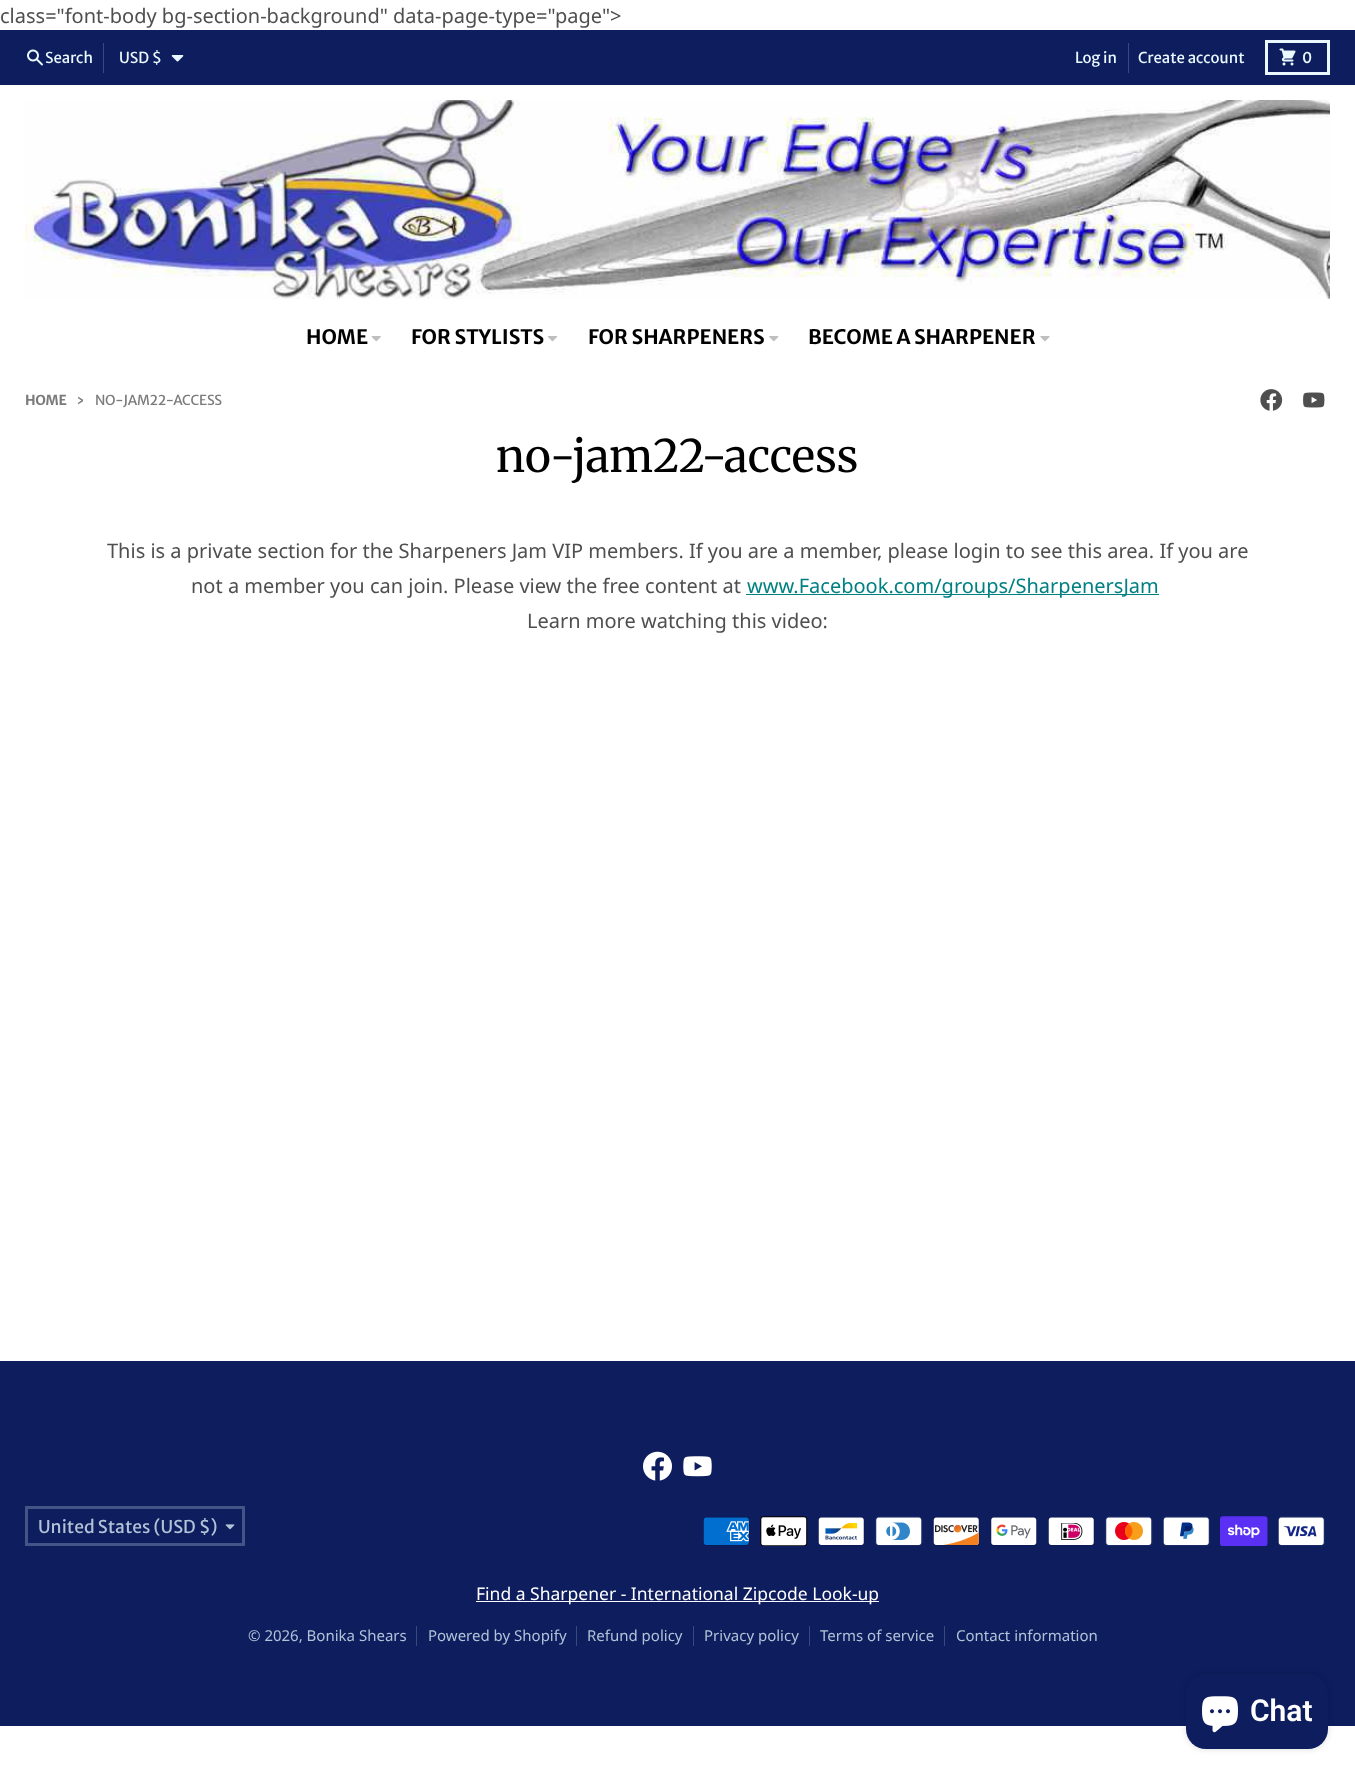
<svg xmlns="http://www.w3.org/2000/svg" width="1355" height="1774">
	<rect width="100%" height="100%" fill="#FFFFFF" />
	<text x="0" y="23" font-family="Noto Sans" font-size="20" fill="#4F4F4F">class="font-body bg-section-background" data-page-type="page"&gt;</text>
	<rect x="0" y="30" width="1355" height="55" fill="#0D1D5E" />
	<image x="27" y="49" width="16" height="17" href="assets/img1.png" />
	<text x="45" y="63" font-family="Merriweather Sans" font-size="15" fill="#E9F9FF">Search</text>
	<rect x="103" y="43" width="1" height="30" fill="#39497E" />
	<text x="119" y="63" font-family="Merriweather Sans" font-size="15" fill="#E9F9FF">USD $</text>
	<image x="171" y="55" width="13" height="7" href="assets/img2.png" />
	<text x="1075" y="63" font-family="Merriweather Sans" font-size="15" fill="#E9F9FF">Log in</text>
	<rect x="1128" y="43" width="1" height="30" fill="#39497E" />
	<text x="1138" y="63" font-family="Merriweather Sans" font-size="15" fill="#E9F9FF">Create account</text>
	<rect x="1266.5" y="41.5" width="62" height="32" fill="none" stroke="#E9F9FF" stroke-width="3" />
	<image x="1279" y="48" width="17" height="18" href="assets/img3.png" />
	<text x="1302" y="63" font-family="Merriweather Sans" font-size="15" fill="#E9F9FF">0</text>
	<image x="25" y="100" width="1305" height="199" href="assets/img4.png" />
	<text x="306" y="344" font-family="Merriweather Sans" font-size="20" font-weight="700" fill="#000000">HOME</text>
	<image x="371" y="336" width="10" height="6" href="assets/img5.png" />
	<text x="411" y="344" font-family="Merriweather Sans" font-size="20" font-weight="700" fill="#000000">FOR STYLISTS</text>
	<image x="548" y="336" width="9" height="6" href="assets/img6.png" />
	<text x="588" y="344" font-family="Merriweather Sans" font-size="20" font-weight="700" fill="#000000">FOR SHARPENERS</text>
	<image x="769" y="336" width="10" height="6" href="assets/img7.png" />
	<text x="808" y="344" font-family="Merriweather Sans" font-size="20" font-weight="700" fill="#000000">BECOME A SHARPENER</text>
	<image x="1040" y="336" width="10" height="5" href="assets/img8.png" />
	<text x="25" y="405" font-family="Merriweather Sans" font-size="13.75" font-weight="700" letter-spacing="-0.3" fill="#7B7B7B">HOME</text>
	<text x="76" y="405" font-family="Merriweather Sans" font-size="15" letter-spacing="-0.3" fill="#7B7B7B">›</text>
	<text x="95" y="405" font-family="Merriweather Sans" font-size="13.75" letter-spacing="-0.3" fill="#7B7B7B">NO-JAM22-ACCESS</text>
	<image x="1260" y="389" width="23" height="22" href="assets/img9.png" />
	<image x="1303" y="392" width="22" height="16" href="assets/img10.png" />
	<text x="496" y="472" font-family="Merriweather" font-size="45" fill="#000000">no-jam22-access</text>
	<g font-family="Noto Sans" font-size="20" fill="#4F4F4F">
		<text x="107" y="558">This is a private section for the Sharpeners Jam VIP members. If you are a member, please login to see this area. If you are</text>
		<text x="191" y="593">not a member you can join. Please view the free content at</text>
	</g>
	<rect x="746" y="594" width="413" height="1" fill="#008080" />
	<text x="747" y="593" font-family="Noto Sans" font-size="20" fill="#008080">www.Facebook.com/groups/SharpenersJam</text>
	<text x="527" y="628" font-family="Noto Sans" font-size="20" fill="#4F4F4F">Learn more watching this video:</text>
	<rect x="0" y="1361" width="1355" height="365" fill="#0D1D5E" />
	<image x="643" y="1451" width="29" height="30" href="assets/img11.png" />
	<image x="683" y="1456" width="29" height="21" href="assets/img12.png" />
	<rect x="26.5" y="1507.5" width="217" height="37" fill="none" stroke="#445486" stroke-width="3" />
	<text x="38" y="1533" font-family="Merriweather Sans" font-size="17.5" fill="#B2C2D7">United States (USD $)</text>
	<image x="225" y="1524" width="10" height="6" href="assets/img13.png" />
	<image x="703" y="1516" width="47" height="30" href="assets/img14.png" />
	<image x="760" y="1516" width="48" height="30" href="assets/img15.png" />
	<image x="818" y="1516" width="47" height="30" href="assets/img16.png" />
	<image x="875" y="1516" width="48" height="30" href="assets/img17.png" />
	<image x="933" y="1516" width="47" height="30" href="assets/img18.png" />
	<image x="990" y="1516" width="47" height="30" href="assets/img19.png" />
	<image x="1048" y="1516" width="47" height="30" href="assets/img20.png" />
	<image x="1105" y="1516" width="48" height="30" href="assets/img21.png" />
	<image x="1163" y="1516" width="47" height="30" href="assets/img22.png" />
	<image x="1220" y="1516" width="48" height="30" href="assets/img23.png" />
	<image x="1278" y="1516" width="47" height="30" href="assets/img24.png" />
	<rect x="476" y="1601" width="403" height="1" fill="#FFFFFF" />
	<text x="476" y="1600" font-family="Noto Sans" font-size="17.5" fill="#FFFFFF">Find a Sharpener - International Zipcode Look-up</text>
	<text x="248" y="1641" font-family="Noto Sans" font-size="15" fill="#B2C2D7">© 2026, Bonika Shears</text>
	<rect x="416" y="1626" width="1" height="20" fill="#39497E" />
	<text x="428" y="1641" font-family="Noto Sans" font-size="15" fill="#B2C2D7">Powered by Shopify</text>
	<rect x="576" y="1626" width="1" height="20" fill="#39497E" />
	<text x="587" y="1641" font-family="Noto Sans" font-size="15" fill="#B2C2D7">Refund policy</text>
	<rect x="693" y="1626" width="1" height="20" fill="#39497E" />
	<text x="704" y="1641" font-family="Noto Sans" font-size="15" fill="#B2C2D7">Privacy policy</text>
	<rect x="809" y="1626" width="1" height="20" fill="#39497E" />
	<text x="820" y="1641" font-family="Noto Sans" font-size="15" fill="#B2C2D7">Terms of service</text>
	<rect x="944" y="1626" width="1" height="20" fill="#39497E" />
	<text x="956" y="1641" font-family="Noto Sans" font-size="15" fill="#B2C2D7">Contact information</text>
	<rect x="1186" y="1674" width="142" height="75" rx="20" fill="#000000" fill-opacity="0.15" filter="blur(3px)" />
	<rect x="1186" y="1674" width="142" height="75" rx="20" fill="#0D1D5E" />
	<image x="1202" y="1696" width="36" height="37" href="assets/img25.png" />
	<text x="1250" y="1721" font-family="Roboto" font-size="30" font-weight="600" fill="#FFFFFF">Chat</text>
</svg>
